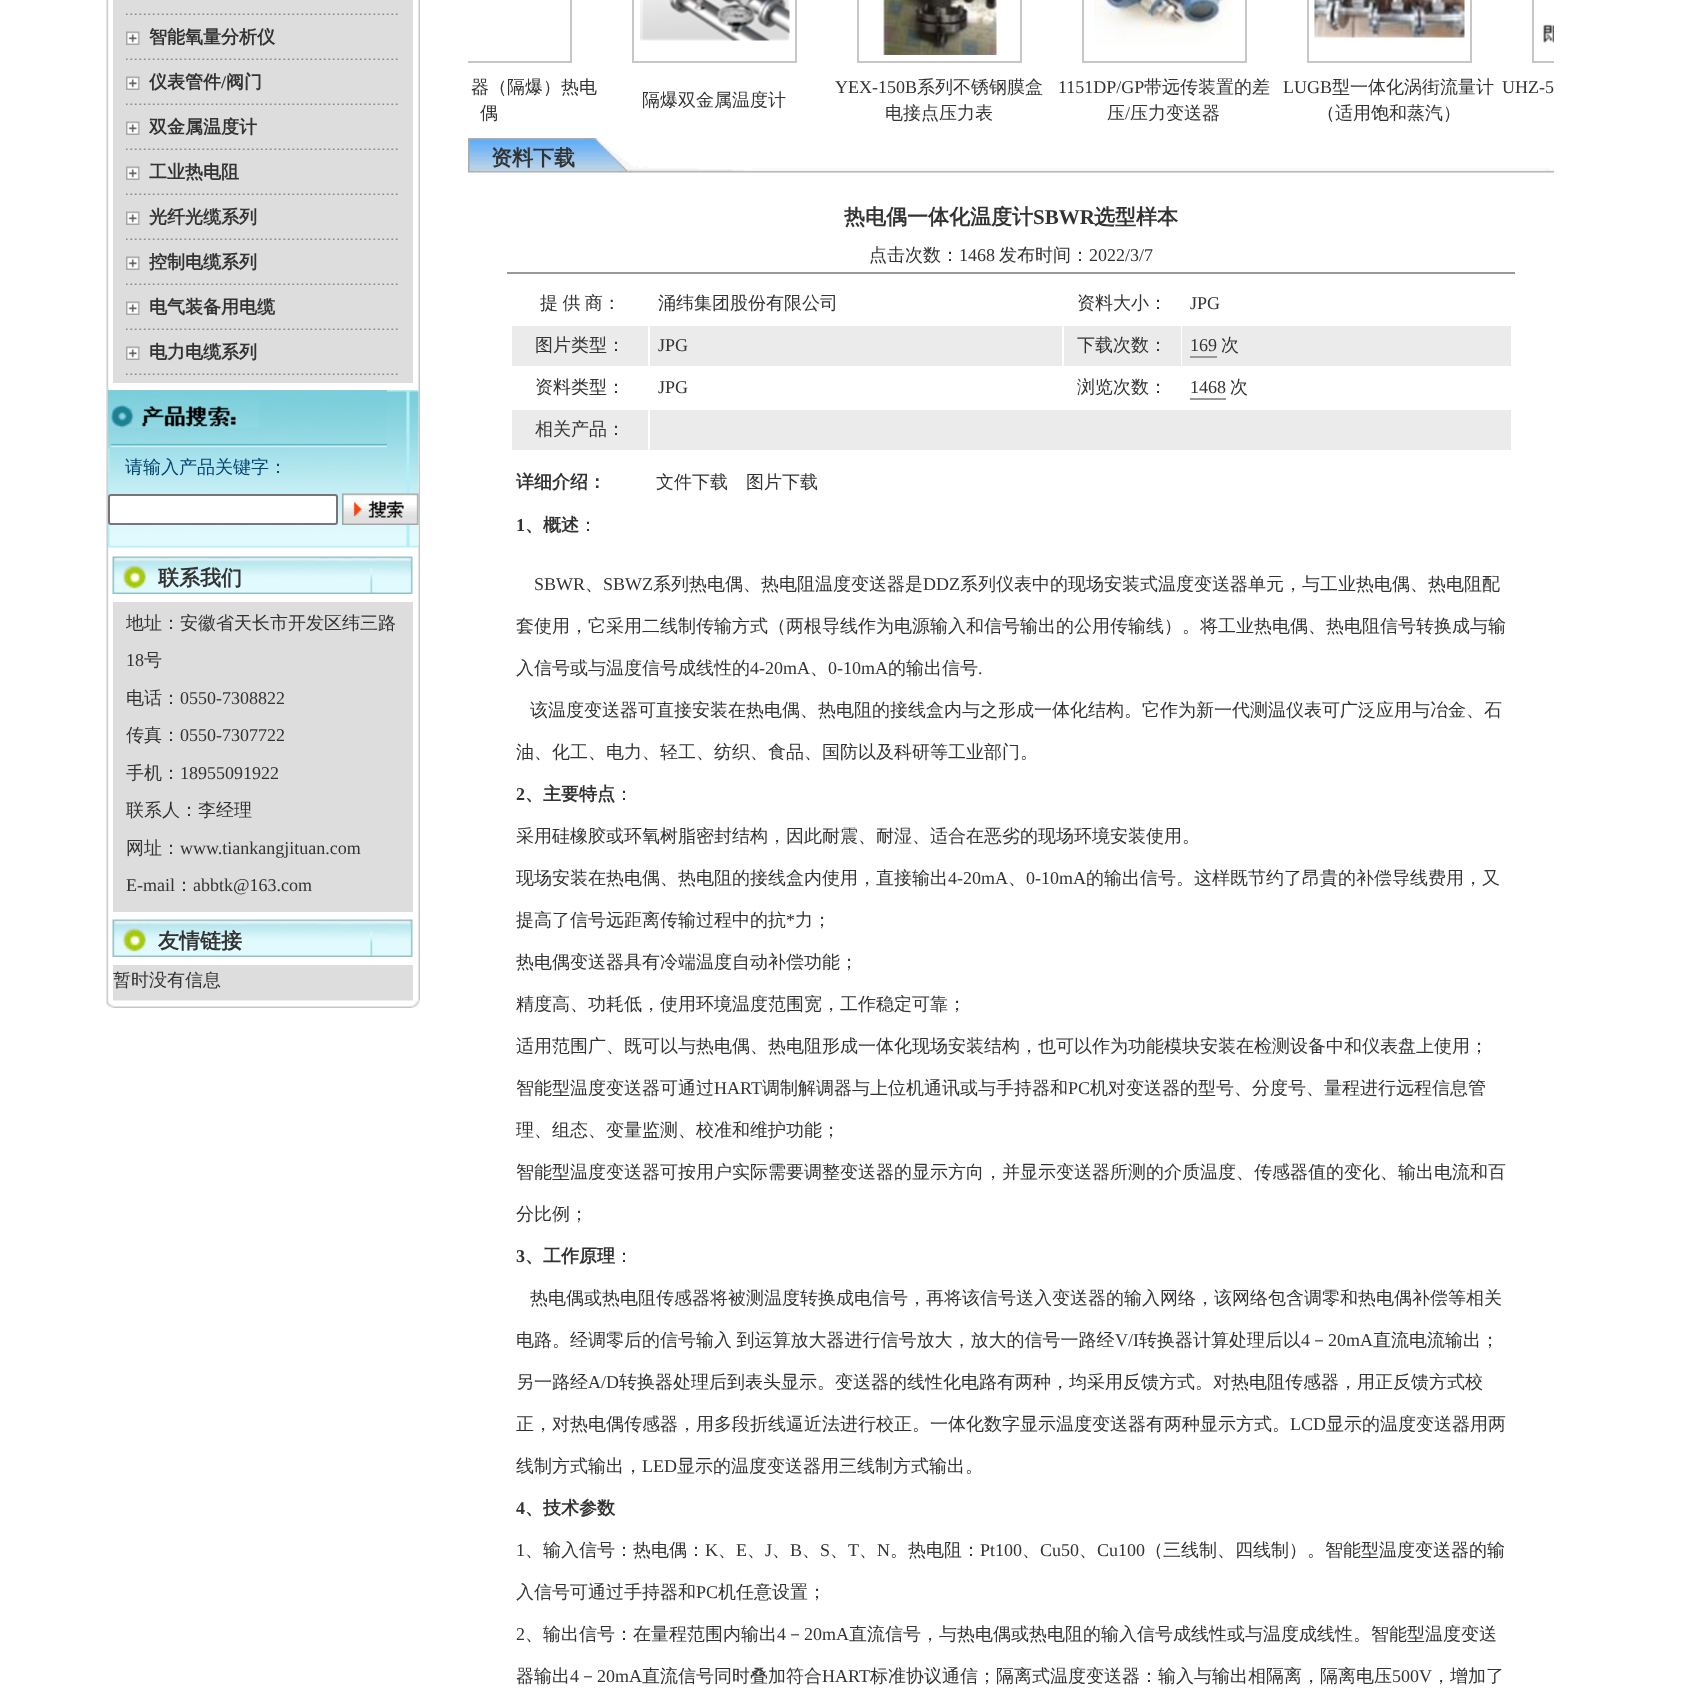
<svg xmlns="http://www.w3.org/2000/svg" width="1708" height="1690">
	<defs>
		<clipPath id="clip1"><rect x="468" y="0" width="1086" height="138" /></clipPath>
	</defs>
	<rect width="100%" height="100%" fill="#FFFFFF" />
	<image x="106" y="0" width="314" height="1001" href="assets/img1.png" />
	<rect x="113" y="0" width="300" height="383" fill="#DDDDDD" />
	<image x="126" y="13" width="272" height="2" href="assets/img2.png" />
	<image x="126" y="58" width="272" height="2" href="assets/img2.png" />
	<image x="126" y="31" width="14" height="14" href="assets/img3.png" />
	<text x="149" y="43" font-family="WenQuanYi Zen Hei" font-size="18" font-weight="700" fill="#333333">智能氧量分析仪</text>
	<image x="126" y="103" width="272" height="2" href="assets/img4.png" />
	<image x="126" y="76" width="14" height="14" href="assets/img3.png" />
	<text x="149" y="88" font-family="WenQuanYi Zen Hei" font-size="18" font-weight="700" fill="#333333">仪表管件</text>
	<text x="221" y="88" font-family="Liberation Serif" font-size="18" font-weight="700" fill="#333333">/</text>
	<text x="226" y="88" font-family="WenQuanYi Zen Hei" font-size="18" font-weight="700" fill="#333333">阀门</text>
	<image x="126" y="148" width="272" height="2" href="assets/img4.png" />
	<image x="126" y="121" width="14" height="14" href="assets/img3.png" />
	<text x="149" y="133" font-family="WenQuanYi Zen Hei" font-size="18" font-weight="700" fill="#333333">双金属温度计</text>
	<image x="126" y="193" width="272" height="2" href="assets/img2.png" />
	<image x="126" y="166" width="14" height="14" href="assets/img3.png" />
	<text x="149" y="178" font-family="WenQuanYi Zen Hei" font-size="18" font-weight="700" fill="#333333">工业热电阻</text>
	<image x="126" y="238" width="272" height="2" href="assets/img4.png" />
	<image x="126" y="211" width="14" height="14" href="assets/img3.png" />
	<text x="149" y="223" font-family="WenQuanYi Zen Hei" font-size="18" font-weight="700" fill="#333333">光纤光缆系列</text>
	<image x="126" y="283" width="272" height="2" href="assets/img4.png" />
	<image x="126" y="256" width="14" height="14" href="assets/img3.png" />
	<text x="149" y="268" font-family="WenQuanYi Zen Hei" font-size="18" font-weight="700" fill="#333333">控制电缆系列</text>
	<image x="126" y="328" width="272" height="2" href="assets/img5.png" />
	<image x="126" y="301" width="14" height="14" href="assets/img3.png" />
	<text x="149" y="313" font-family="WenQuanYi Zen Hei" font-size="18" font-weight="700" fill="#333333">电气装备用电缆</text>
	<image x="126" y="373" width="272" height="2" href="assets/img5.png" />
	<image x="126" y="346" width="14" height="14" href="assets/img3.png" />
	<text x="149" y="358" font-family="WenQuanYi Zen Hei" font-size="18" font-weight="700" fill="#333333">电力电缆系列</text>
	<image x="108" y="390" width="311" height="158" href="assets/img6.png" />
	<image x="108" y="390" width="279" height="59" href="assets/img7.png" />
	<text x="125" y="473" font-family="WenQuanYi Zen Hei" font-size="18" font-weight="500" fill="#024472">请输入产品关键字：</text>
	<rect x="109" y="495" width="228" height="29" rx="2" fill="#FFFFFF" stroke="#767676" stroke-width="2" />
	<image x="342" y="493" width="77" height="32" href="assets/img8.png" />
	<image x="112" y="556" width="301" height="38" href="assets/img9.png" />
	<text x="158" y="585" font-family="WenQuanYi Zen Hei" font-size="21" font-weight="700" fill="#333333">联系我们</text>
	<rect x="113" y="602" width="300" height="310" fill="#DDDDDD" />
	<text x="126" y="629" font-family="WenQuanYi Zen Hei" font-size="18" font-weight="500" fill="#333333">地址：安徽省天长市开发区纬三路</text>
	<text x="126" y="666" font-family="Liberation Serif" font-size="18" fill="#333333">18</text>
	<g font-family="WenQuanYi Zen Hei" font-size="18" font-weight="500" fill="#333333">
		<text x="144" y="666">号</text>
		<text x="126" y="704">电话：</text>
	</g>
	<text x="180" y="704" font-family="Liberation Serif" font-size="18" fill="#333333">0550-7308822</text>
	<text x="126" y="741" font-family="WenQuanYi Zen Hei" font-size="18" font-weight="500" fill="#333333">传真：</text>
	<text x="180" y="741" font-family="Liberation Serif" font-size="18" fill="#333333">0550-7307722</text>
	<text x="126" y="779" font-family="WenQuanYi Zen Hei" font-size="18" font-weight="500" fill="#333333">手机：</text>
	<text x="180" y="779" font-family="Liberation Serif" font-size="18" fill="#333333">18955091922</text>
	<g font-family="WenQuanYi Zen Hei" font-size="18" font-weight="500" fill="#333333">
		<text x="126" y="816">联系人：李经理</text>
		<text x="126" y="854">网址：</text>
	</g>
	<g font-family="Liberation Serif" font-size="18" fill="#333333">
		<text x="180" y="854">www.tiankangjituan.com</text>
		<text x="126" y="891">E-mail</text>
	</g>
	<text x="175" y="891" font-family="WenQuanYi Zen Hei" font-size="18" font-weight="500" fill="#333333">：</text>
	<text x="193" y="891" font-family="Liberation Serif" font-size="18" fill="#333333">abbtk@163.com</text>
	<image x="112" y="919" width="301" height="38" href="assets/img9.png" />
	<text x="158" y="948" font-family="WenQuanYi Zen Hei" font-size="21" font-weight="700" fill="#333333">友情链接</text>
	<rect x="113" y="965" width="300" height="36" fill="#DDDDDD" />
	<text x="113" y="986" font-family="WenQuanYi Zen Hei" font-size="18" font-weight="500" fill="#333333">暂时没有信息</text>
	<image x="106" y="1000" width="314" height="8" href="assets/img10.png" />
	<g clip-path="url(#clip1)">
		<rect x="408" y="-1" width="163" height="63" fill="none" stroke="#C7C7C7" stroke-width="2" />
	</g>
	<g font-family="WenQuanYi Zen Hei" font-size="18" font-weight="500" fill="#333333">
		<text x="471" y="93">器（隔爆）热电</text>
		<text x="480" y="119">偶</text>
	</g>
	<rect x="858" y="-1" width="163" height="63" fill="none" stroke="#C7C7C7" stroke-width="2" />
	<image x="883" y="0" width="114" height="55" href="assets/img11.png" />
	<text x="835" y="93" font-family="Liberation Serif" font-size="18" fill="#333333">YEX-150B</text>
	<g font-family="WenQuanYi Zen Hei" font-size="18" font-weight="500" fill="#333333">
		<text x="917" y="93">系列不锈钢膜盒</text>
		<text x="885" y="119">电接点压力表</text>
	</g>
	<rect x="1083" y="-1" width="163" height="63" fill="none" stroke="#C7C7C7" stroke-width="2" />
	<image x="1094" y="0" width="139" height="46" href="assets/img12.png" />
	<text x="1058" y="93" font-family="Liberation Serif" font-size="18" fill="#333333">1151DP/GP</text>
	<g font-family="WenQuanYi Zen Hei" font-size="18" font-weight="500" fill="#333333">
		<text x="1144" y="93">带远传装置的差</text>
		<text x="1107" y="119">压</text>
	</g>
	<text x="1125" y="119" font-family="Liberation Serif" font-size="18" fill="#333333">/</text>
	<text x="1130" y="119" font-family="WenQuanYi Zen Hei" font-size="18" font-weight="500" fill="#333333">压力变送器</text>
	<rect x="1308" y="-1" width="163" height="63" fill="none" stroke="#C7C7C7" stroke-width="2" />
	<image x="1314" y="0" width="151" height="38" href="assets/img13.png" />
	<text x="1283" y="93" font-family="Liberation Serif" font-size="18" fill="#333333">LUGB</text>
	<g font-family="WenQuanYi Zen Hei" font-size="18" font-weight="500" fill="#333333">
		<text x="1332" y="93">型一体化涡街流量计</text>
		<text x="1317" y="119">（适用饱和蒸汽）</text>
	</g>
	<g clip-path="url(#clip1)">
		<rect x="1533" y="-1" width="163" height="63" fill="none" stroke="#C7C7C7" stroke-width="2" />
	</g>
	<image x="1543" y="24" width="11" height="19" href="assets/img14.png" />
	<text x="1502" y="93" font-family="Liberation Serif" font-size="18" fill="#333333">UHZ-5</text>
	<rect x="633" y="-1" width="163" height="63" fill="none" stroke="#C7C7C7" stroke-width="2" />
	<image x="640" y="0" width="150" height="41" href="assets/img15.png" />
	<text x="642" y="106" font-family="WenQuanYi Zen Hei" font-size="18" font-weight="500" fill="#333333">隔爆双金属温度计</text>
	<image x="468" y="138" width="1086" height="35" href="assets/img16.png" />
	<g font-family="WenQuanYi Zen Hei" font-size="21" font-weight="700" fill="#333333">
		<text x="491" y="165">资料下载</text>
		<text x="844" y="224">热电偶一体化温度计</text>
	</g>
	<text x="1033" y="224" font-family="Liberation Serif" font-size="21" font-weight="700" fill="#333333">SBWR</text>
	<text x="1094" y="224" font-family="WenQuanYi Zen Hei" font-size="21" font-weight="700" fill="#333333">选型样本</text>
	<rect x="507" y="272" width="1008" height="2" fill="#999999" />
	<text x="869" y="261" font-family="WenQuanYi Zen Hei" font-size="18" font-weight="500" fill="#333333">点击次数：</text>
	<text x="959" y="261" font-family="Liberation Serif" font-size="18" fill="#333333">1468</text>
	<text x="999" y="261" font-family="WenQuanYi Zen Hei" font-size="18" font-weight="500" fill="#333333">发布时间：</text>
	<text x="1089" y="261" font-family="Liberation Serif" font-size="18" fill="#333333">2022/3/7</text>
	<g font-family="WenQuanYi Zen Hei" font-size="18" font-weight="500" fill="#333333">
		<text x="540" y="309" word-spacing="-1">提 供 商：</text>
		<text x="658" y="309">涌纬集团股份有限公司</text>
		<text x="1077" y="309">资料大小：</text>
	</g>
	<text x="1190" y="309" font-family="Liberation Serif" font-size="18" fill="#333333">JPG</text>
	<rect x="512" y="326" width="136" height="40" fill="#EBEBEB" />
	<text x="535" y="351" font-family="WenQuanYi Zen Hei" font-size="18" font-weight="500" fill="#333333">图片类型：</text>
	<rect x="650" y="326" width="412" height="40" fill="#EBEBEB" />
	<text x="658" y="351" font-family="Liberation Serif" font-size="18" fill="#333333">JPG</text>
	<rect x="1064" y="326" width="117" height="40" fill="#EBEBEB" />
	<text x="1077" y="351" font-family="WenQuanYi Zen Hei" font-size="18" font-weight="500" fill="#333333">下载次数：</text>
	<rect x="1182" y="326" width="329" height="40" fill="#EBEBEB" />
	<text x="1190" y="351" font-family="Liberation Serif" font-size="18" fill="#333333">169</text>
	<rect x="1190" y="356" width="27" height="2" fill="#999999" />
	<g font-family="WenQuanYi Zen Hei" font-size="18" font-weight="500" fill="#333333">
		<text x="1221" y="351">次</text>
		<text x="535" y="393">资料类型：</text>
	</g>
	<text x="658" y="393" font-family="Liberation Serif" font-size="18" fill="#333333">JPG</text>
	<text x="1077" y="393" font-family="WenQuanYi Zen Hei" font-size="18" font-weight="500" fill="#333333">浏览次数：</text>
	<text x="1190" y="393" font-family="Liberation Serif" font-size="18" fill="#333333">1468</text>
	<rect x="1190" y="398" width="36" height="2" fill="#999999" />
	<text x="1230" y="393" font-family="WenQuanYi Zen Hei" font-size="18" font-weight="500" fill="#333333">次</text>
	<rect x="512" y="410" width="136" height="40" fill="#EBEBEB" />
	<text x="535" y="435" font-family="WenQuanYi Zen Hei" font-size="18" font-weight="500" fill="#333333">相关产品：</text>
	<rect x="650" y="410" width="861" height="40" fill="#EBEBEB" />
	<text x="516" y="488" font-family="WenQuanYi Zen Hei" font-size="18" font-weight="700" fill="#333333">详细介绍：</text>
	<g font-family="WenQuanYi Zen Hei" font-size="18" font-weight="500" fill="#333333">
		<text x="656" y="488">文件下载</text>
		<text x="746" y="488">图片下载</text>
	</g>
	<text x="516" y="531" font-family="Liberation Serif" font-size="18" font-weight="700" fill="#333333">1</text>
	<text x="525" y="531" font-family="WenQuanYi Zen Hei" font-size="18" font-weight="700" fill="#333333">、概述</text>
	<text x="579" y="531" font-family="WenQuanYi Zen Hei" font-size="18" font-weight="500" fill="#333333">：</text>
	<text x="534" y="590" font-family="Liberation Serif" font-size="18" fill="#333333">SBWR</text>
	<text x="585" y="590" font-family="WenQuanYi Zen Hei" font-size="18" font-weight="500" fill="#333333">、</text>
	<text x="603" y="590" font-family="Liberation Serif" font-size="18" fill="#333333">SBWZ</text>
	<text x="653" y="590" font-family="WenQuanYi Zen Hei" font-size="18" font-weight="500" fill="#333333">系列热电偶、热电阻温度变送器是</text>
	<text x="923" y="590" font-family="Liberation Serif" font-size="18" fill="#333333">DDZ</text>
	<g font-family="WenQuanYi Zen Hei" font-size="18" font-weight="500" fill="#333333">
		<text x="960" y="590">系列仪表中的现场安装式温度变送器单元，与工业热电偶、热电阻配</text>
		<text x="516" y="632">套使用，它采用二线制传输方式（两根导线作为电源输入和信号输出的公用传输线）。将工业热电偶、热电阻信号转换成与输</text>
		<text x="516" y="674">入信号或与温度信号成线性的</text>
	</g>
	<text x="750" y="674" font-family="Liberation Serif" font-size="18" fill="#333333">4-20mA</text>
	<text x="810" y="674" font-family="WenQuanYi Zen Hei" font-size="18" font-weight="500" fill="#333333">、</text>
	<text x="828" y="674" font-family="Liberation Serif" font-size="18" fill="#333333">0-10mA</text>
	<text x="888" y="674" font-family="WenQuanYi Zen Hei" font-size="18" font-weight="500" fill="#333333">的输出信号</text>
	<text x="978" y="674" font-family="Liberation Serif" font-size="18" fill="#333333">.</text>
	<g font-family="WenQuanYi Zen Hei" font-size="18" font-weight="500" fill="#333333">
		<text x="530" y="716">该温度变送器可直接安装在热电偶、热电阻的接线盒内与之形成一体化结构。它作为新一代测温仪表可广泛应用与冶金、石</text>
		<text x="516" y="758">油、化工、电力、轻工、纺织、食品、国防以及科研等工业部门。</text>
	</g>
	<text x="516" y="800" font-family="Liberation Serif" font-size="18" font-weight="700" fill="#333333">2</text>
	<text x="525" y="800" font-family="WenQuanYi Zen Hei" font-size="18" font-weight="700" fill="#333333">、主要特点</text>
	<g font-family="WenQuanYi Zen Hei" font-size="18" font-weight="500" fill="#333333">
		<text x="615" y="800">：</text>
		<text x="516" y="842">采用硅橡胶或环氧树脂密封结构，因此耐震、耐湿、适合在恶劣的现场环境安装使用。</text>
		<text x="516" y="884">现场安装在热电偶、热电阻的接线盒内使用，直接输出</text>
	</g>
	<text x="948" y="884" font-family="Liberation Serif" font-size="18" fill="#333333">4-20mA</text>
	<text x="1008" y="884" font-family="WenQuanYi Zen Hei" font-size="18" font-weight="500" fill="#333333">、</text>
	<text x="1026" y="884" font-family="Liberation Serif" font-size="18" fill="#333333">0-10mA</text>
	<g font-family="WenQuanYi Zen Hei" font-size="18" font-weight="500" fill="#333333">
		<text x="1086" y="884">的输出信号。这样既节约了昂貴的补偿导线费用，又</text>
		<text x="516" y="926">提高了信号远距离传输过程中的抗</text>
	</g>
	<text x="786" y="926" font-family="Liberation Serif" font-size="18" fill="#333333">*</text>
	<g font-family="WenQuanYi Zen Hei" font-size="18" font-weight="500" fill="#333333">
		<text x="795" y="926">力；</text>
		<text x="516" y="968">热电偶变送器具有冷端温度自动补偿功能；</text>
		<text x="516" y="1010">精度高、功耗低，使用环境温度范围宽，工作稳定可靠；</text>
		<text x="516" y="1052">适用范围广、既可以与热电偶、热电阻形成一体化现场安装结构，也可以作为功能模块安装在检测设备中和仪表盘上使用；</text>
		<text x="516" y="1094">智能型温度变送器可通过</text>
	</g>
	<text x="714" y="1094" font-family="Liberation Serif" font-size="18" fill="#333333">HART</text>
	<text x="762" y="1094" font-family="WenQuanYi Zen Hei" font-size="18" font-weight="500" fill="#333333">调制解调器与上位机通讯或与手持器和</text>
	<text x="1068" y="1094" font-family="Liberation Serif" font-size="18" fill="#333333">PC</text>
	<g font-family="WenQuanYi Zen Hei" font-size="18" font-weight="500" fill="#333333">
		<text x="1090" y="1094">机对变送器的型号、分度号、量程进行远程信息管</text>
		<text x="516" y="1136">理、组态、变量监测、校准和维护功能；</text>
		<text x="516" y="1178">智能型温度变送器可按用户实际需要调整变送器的显示方向，并显示变送器所测的介质温度、传感器值的变化、输出电流和百</text>
		<text x="516" y="1220">分比例；</text>
	</g>
	<text x="516" y="1262" font-family="Liberation Serif" font-size="18" font-weight="700" fill="#333333">3</text>
	<text x="525" y="1262" font-family="WenQuanYi Zen Hei" font-size="18" font-weight="700" fill="#333333">、工作原理</text>
	<g font-family="WenQuanYi Zen Hei" font-size="18" font-weight="500" fill="#333333">
		<text x="615" y="1262">：</text>
		<text x="530" y="1304">热电偶或热电阻传感器将被测温度转换成电信号，再将该信号送入变送器的输入网络，该网络包含调零和热电偶补偿等相关</text>
		<text x="516" y="1346" word-spacing="-1">电路。经调零后的信号输入 到运算放大器进行信号放大，放大的信号一路经</text>
	</g>
	<text x="1115" y="1346" font-family="Liberation Serif" font-size="18" fill="#333333">V/I</text>
	<text x="1139" y="1346" font-family="WenQuanYi Zen Hei" font-size="18" font-weight="500" fill="#333333">转换器计算处理后以</text>
	<text x="1301" y="1346" font-family="Liberation Serif" font-size="18" fill="#333333">4</text>
	<text x="1310" y="1346" font-family="WenQuanYi Zen Hei" font-size="18" font-weight="500" fill="#333333">－</text>
	<text x="1328" y="1346" font-family="Liberation Serif" font-size="18" fill="#333333">20mA</text>
	<g font-family="WenQuanYi Zen Hei" font-size="18" font-weight="500" fill="#333333">
		<text x="1373" y="1346">直流电流输出；</text>
		<text x="516" y="1388">另一路经</text>
	</g>
	<text x="588" y="1388" font-family="Liberation Serif" font-size="18" fill="#333333">A/D</text>
	<g font-family="WenQuanYi Zen Hei" font-size="18" font-weight="500" fill="#333333">
		<text x="619" y="1388">转换器处理后到表头显示。变送器的线性化电路有两种，均采用反馈方式。对热电阻传感器，用正反馈方式校</text>
		<text x="516" y="1430">正，对热电偶传感器，用多段折线逼近法进行校正。一体化数字显示温度变送器有两种显示方式。</text>
	</g>
	<text x="1290" y="1430" font-family="Liberation Serif" font-size="18" fill="#333333">LCD</text>
	<g font-family="WenQuanYi Zen Hei" font-size="18" font-weight="500" fill="#333333">
		<text x="1326" y="1430">显示的温度变送器用两</text>
		<text x="516" y="1472">线制方式输出，</text>
	</g>
	<text x="642" y="1472" font-family="Liberation Serif" font-size="18" fill="#333333">LED</text>
	<text x="677" y="1472" font-family="WenQuanYi Zen Hei" font-size="18" font-weight="500" fill="#333333">显示的温度变送器用三线制方式输出。</text>
	<text x="516" y="1514" font-family="Liberation Serif" font-size="18" font-weight="700" fill="#333333">4</text>
	<text x="525" y="1514" font-family="WenQuanYi Zen Hei" font-size="18" font-weight="700" fill="#333333">、技术参数</text>
	<text x="516" y="1556" font-family="Liberation Serif" font-size="18" fill="#333333">1</text>
	<text x="525" y="1556" font-family="WenQuanYi Zen Hei" font-size="18" font-weight="500" fill="#333333">、输入信号：热电偶：</text>
	<text x="705" y="1556" font-family="Liberation Serif" font-size="18" fill="#333333">K</text>
	<text x="718" y="1556" font-family="WenQuanYi Zen Hei" font-size="18" font-weight="500" fill="#333333">、</text>
	<text x="736" y="1556" font-family="Liberation Serif" font-size="18" fill="#333333">E</text>
	<text x="747" y="1556" font-family="WenQuanYi Zen Hei" font-size="18" font-weight="500" fill="#333333">、</text>
	<text x="765" y="1556" font-family="Liberation Serif" font-size="18" fill="#333333">J</text>
	<text x="772" y="1556" font-family="WenQuanYi Zen Hei" font-size="18" font-weight="500" fill="#333333">、</text>
	<text x="790" y="1556" font-family="Liberation Serif" font-size="18" fill="#333333">B</text>
	<text x="802" y="1556" font-family="WenQuanYi Zen Hei" font-size="18" font-weight="500" fill="#333333">、</text>
	<text x="820" y="1556" font-family="Liberation Serif" font-size="18" fill="#333333">S</text>
	<text x="830" y="1556" font-family="WenQuanYi Zen Hei" font-size="18" font-weight="500" fill="#333333">、</text>
	<text x="848" y="1556" font-family="Liberation Serif" font-size="18" fill="#333333">T</text>
	<text x="859" y="1556" font-family="WenQuanYi Zen Hei" font-size="18" font-weight="500" fill="#333333">、</text>
	<text x="877" y="1556" font-family="Liberation Serif" font-size="18" fill="#333333">N</text>
	<text x="890" y="1556" font-family="WenQuanYi Zen Hei" font-size="18" font-weight="500" fill="#333333">。热电阻：</text>
	<text x="980" y="1556" font-family="Liberation Serif" font-size="18" fill="#333333">Pt100</text>
	<text x="1022" y="1556" font-family="WenQuanYi Zen Hei" font-size="18" font-weight="500" fill="#333333">、</text>
	<text x="1040" y="1556" font-family="Liberation Serif" font-size="18" fill="#333333">Cu50</text>
	<text x="1079" y="1556" font-family="WenQuanYi Zen Hei" font-size="18" font-weight="500" fill="#333333">、</text>
	<text x="1097" y="1556" font-family="Liberation Serif" font-size="18" fill="#333333">Cu100</text>
	<g font-family="WenQuanYi Zen Hei" font-size="18" font-weight="500" fill="#333333">
		<text x="1145" y="1556">（三线制、四线制）。智能型温度变送器的输</text>
		<text x="516" y="1598">入信号可通过手持器和</text>
	</g>
	<text x="696" y="1598" font-family="Liberation Serif" font-size="18" fill="#333333">PC</text>
	<text x="718" y="1598" font-family="WenQuanYi Zen Hei" font-size="18" font-weight="500" fill="#333333">机任意设置；</text>
	<text x="516" y="1640" font-family="Liberation Serif" font-size="18" fill="#333333">2</text>
	<text x="525" y="1640" font-family="WenQuanYi Zen Hei" font-size="18" font-weight="500" fill="#333333">、输出信号：在量程范围内输出</text>
	<text x="777" y="1640" font-family="Liberation Serif" font-size="18" fill="#333333">4</text>
	<text x="786" y="1640" font-family="WenQuanYi Zen Hei" font-size="18" font-weight="500" fill="#333333">－</text>
	<text x="804" y="1640" font-family="Liberation Serif" font-size="18" fill="#333333">20mA</text>
	<g font-family="WenQuanYi Zen Hei" font-size="18" font-weight="500" fill="#333333">
		<text x="849" y="1640">直流信号，与热电偶或热电阻的输入信号成线性或与温度成线性。智能型温度变送</text>
		<text x="516" y="1682">器输出</text>
	</g>
	<text x="570" y="1682" font-family="Liberation Serif" font-size="18" fill="#333333">4</text>
	<text x="579" y="1682" font-family="WenQuanYi Zen Hei" font-size="18" font-weight="500" fill="#333333">－</text>
	<text x="597" y="1682" font-family="Liberation Serif" font-size="18" fill="#333333">20mA</text>
	<text x="642" y="1682" font-family="WenQuanYi Zen Hei" font-size="18" font-weight="500" fill="#333333">直流信号同时叠加符合</text>
	<text x="822" y="1682" font-family="Liberation Serif" font-size="18" fill="#333333">HART</text>
	<text x="870" y="1682" font-family="WenQuanYi Zen Hei" font-size="18" font-weight="500" fill="#333333">标准协议通信；隔离式温度变送器：输入与输出相隔离，隔离电压</text>
	<text x="1392" y="1682" font-family="Liberation Serif" font-size="18" fill="#333333">500V</text>
	<text x="1432" y="1682" font-family="WenQuanYi Zen Hei" font-size="18" font-weight="500" fill="#333333">，增加了</text>
</svg>
